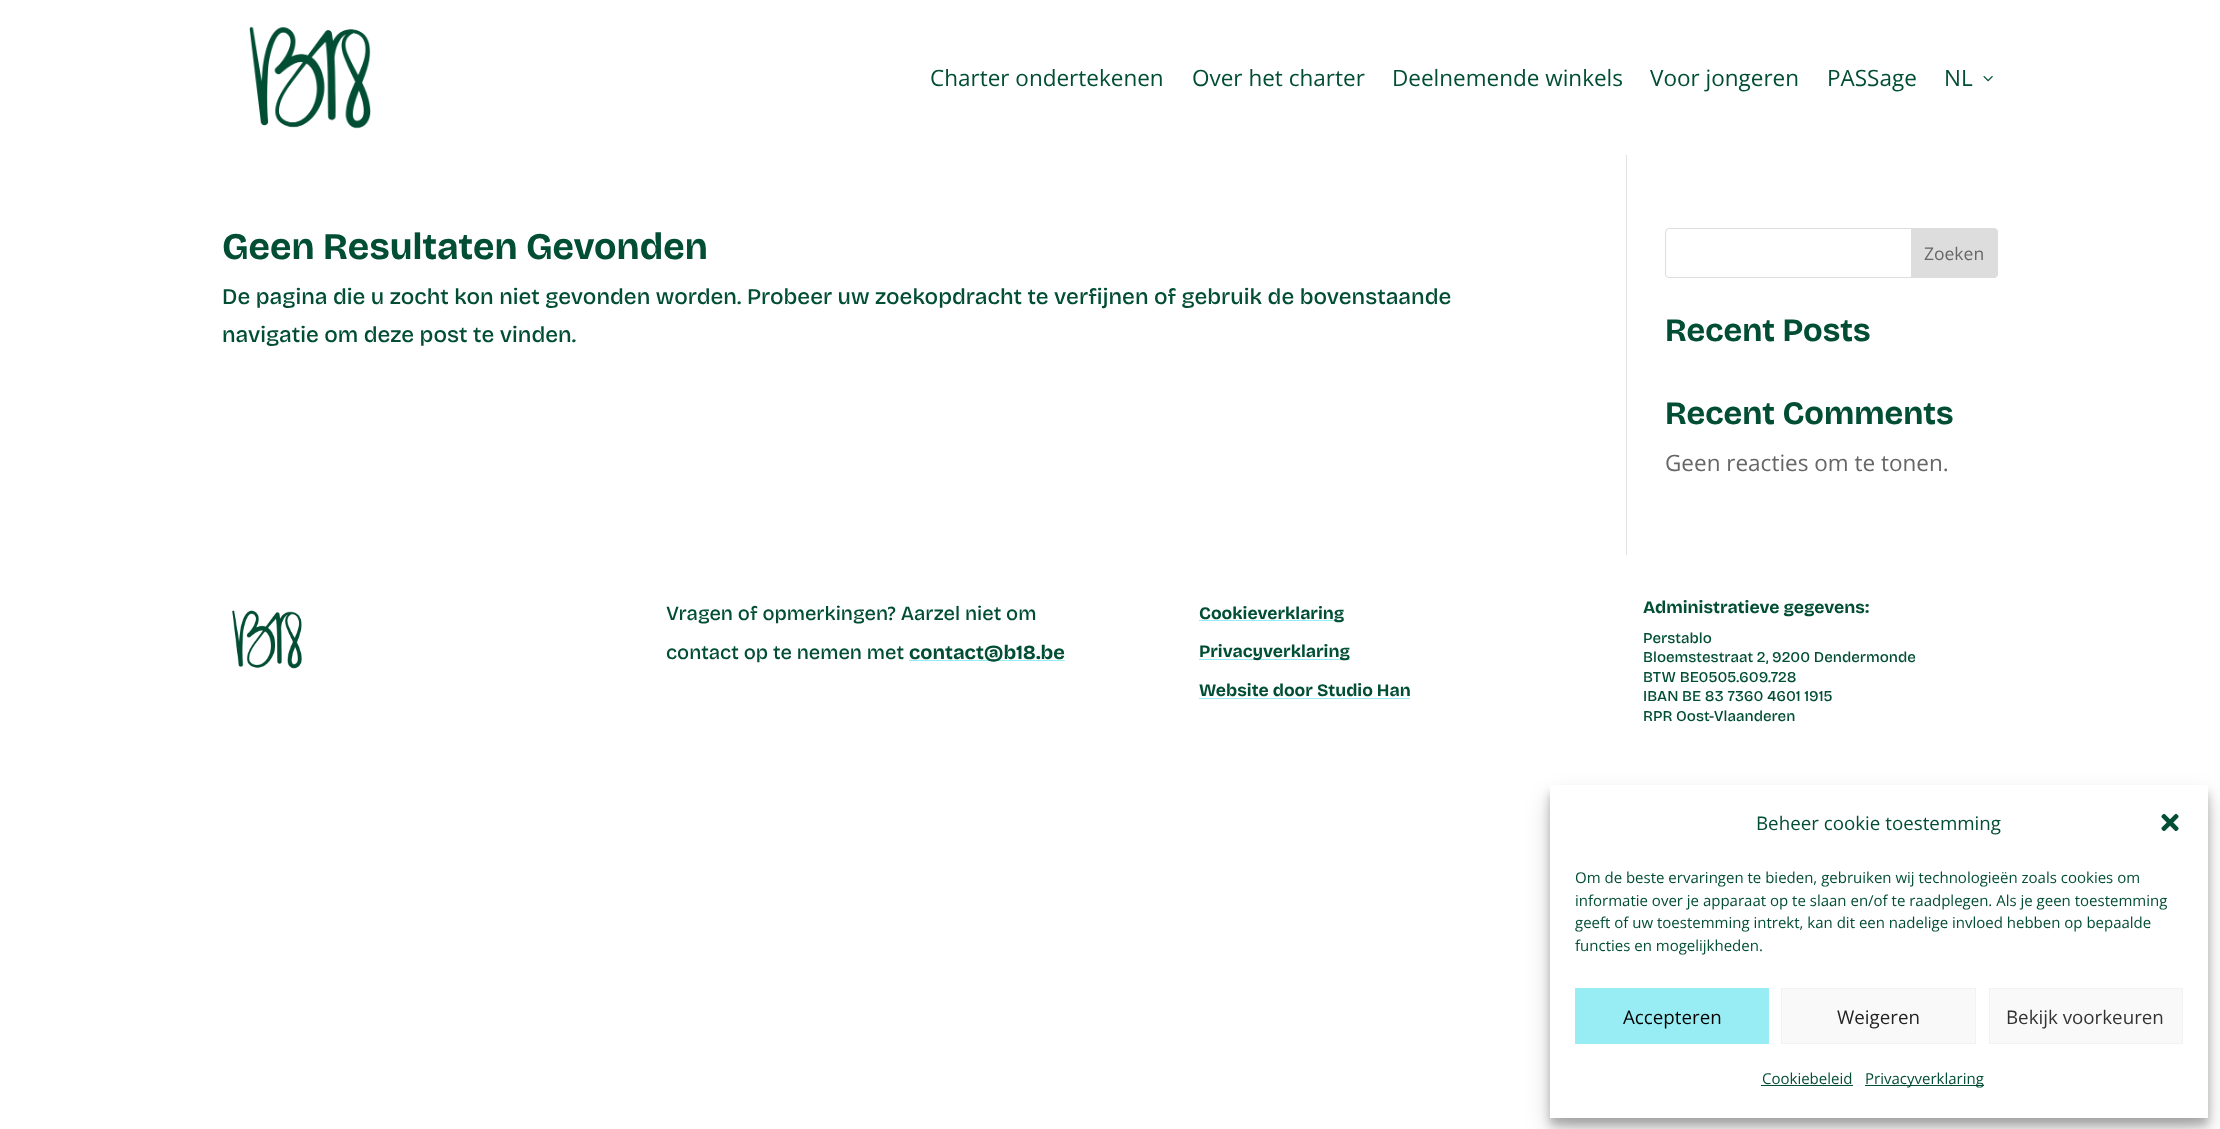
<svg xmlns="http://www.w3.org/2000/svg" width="2220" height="1129">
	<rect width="100%" height="100%" fill="#FFFFFF" />
	<image x="249" y="26" width="122" height="103" href="assets/img1.png" />
	<g font-family="Open Sans" font-size="22.5" fill="#024E35">
		<text x="930" y="86">Charter ondertekenen</text>
		<text x="1192" y="86">Over het charter</text>
		<text x="1392" y="86">Deelnemende winkels</text>
		<text x="1650" y="86">Voor jongeren</text>
		<text x="1827" y="86">PASSage</text>
		<text x="1944" y="86">NL</text>
	</g>
	<image x="1983" y="76" width="10" height="6" href="assets/img2.png" />
	<rect x="1626" y="155" width="1" height="400" fill="#E2E2E2" />
	<text x="222" y="259" font-family="Bricolage Grotesque" font-size="37.5" font-weight="700" fill="#024E35">Geen Resultaten Gevonden</text>
	<g font-family="Bricolage Grotesque" font-size="22.5" font-weight="500" fill="#024E35">
		<text x="222" y="304">De pagina die u zocht kon niet gevonden worden. Probeer uw zoekopdracht te verfijnen of gebruik de bovenstaande</text>
		<text x="222" y="342">navigatie om deze post te vinden.</text>
	</g>
	<rect x="1665.5" y="228.5" width="332" height="49" rx="3.5" fill="none" stroke="#DDDDDD" />
	<path d="M1911.5 228.5H1994C1996 228.5 1997.5 230 1997.5 232V274C1997.5 276 1996 277.5 1994 277.5H1911.5Z" fill="#DDDDDD" stroke="#DDDDDD" />
	<text x="1924" y="260" font-family="Open Sans" font-size="17.5" fill="#666666">Zoeken</text>
	<g font-family="'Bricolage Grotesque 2'" font-size="32.5" font-weight="700" fill="#024E35">
		<text x="1665" y="341">Recent Posts</text>
		<text x="1665" y="424">Recent Comments</text>
	</g>
	<text x="1665" y="471" font-family="Open Sans" font-size="22.5" fill="#666666">Geen reacties om te tonen.</text>
	<image x="232" y="610" width="70" height="59" href="assets/img3.png" />
	<g font-family="'Bricolage Grotesque 2'" font-size="20" font-weight="500" fill="#024E35">
		<text x="666" y="620">Vragen of opmerkingen? Aarzel niet om</text>
		<text x="666" y="659">contact op te nemen met</text>
	</g>
	<rect x="909" y="660" width="156" height="1" fill="#98EDF4" />
	<text x="909" y="659" font-family="'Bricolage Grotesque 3'" font-size="20" font-weight="700" fill="#024E35">contact@b18.be</text>
	<rect x="1199" y="620" width="145" height="1" fill="#98EDF4" />
	<text x="1199" y="619" font-family="'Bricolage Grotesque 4'" font-size="17.5" font-weight="700" fill="#024E35">Cookieverklaring</text>
	<rect x="1199" y="659" width="151" height="1" fill="#98EDF4" />
	<g font-family="'Bricolage Grotesque 4'" font-size="17.5" font-weight="700" fill="#024E35">
		<text x="1199" y="657">Privacyverklaring</text>
		<text x="1199" y="696">Website door Studio Han</text>
	</g>
	<rect x="1199" y="698" width="211" height="1" fill="#98EDF4" />
	<text x="1643" y="613" font-family="'Bricolage Grotesque 4'" font-size="17.5" font-weight="700" fill="#024E35">Administratieve gegevens:</text>
	<g font-family="'Bricolage Grotesque 3'" font-size="15" font-weight="500" fill="#024E35">
		<text x="1643" y="643">Perstablo</text>
		<text x="1643" y="662">Bloemstestraat 2, 9200 Dendermonde</text>
		<text x="1643" y="682">BTW BE0505.609.728</text>
		<text x="1643" y="701">IBAN BE 83 7360 4601 1915</text>
		<text x="1643" y="721">RPR Oost-Vlaanderen</text>
	</g>
	<rect x="1550" y="793" width="658" height="332" fill="#000000" fill-opacity="0.23" filter="blur(4px)" />
	<rect x="1550" y="798" width="658" height="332" fill="#000000" fill-opacity="0.19" filter="blur(12.5px)" />
	<rect x="1550" y="785" width="658" height="333" fill="#FFFFFF" />
	<text x="1756" y="830" font-family="Open Sans" font-size="18.75" fill="#024E35">Beheer cookie toestemming</text>
	<image x="2161" y="813" width="18" height="18" href="assets/img4.png" />
	<g font-family="Open Sans" font-size="15" fill="#024E35">
		<text x="1575" y="883">Om de beste ervaringen te bieden, gebruiken wij technologieën zoals cookies om</text>
		<text x="1575" y="906">informatie over je apparaat op te slaan en/of te raadplegen. Als je geen toestemming</text>
		<text x="1575" y="928">geeft of uw toestemming intrekt, kan dit een nadelige invloed hebben op bepaalde</text>
		<text x="1575" y="951">functies en mogelijkheden.</text>
	</g>
	<rect x="1575" y="988" width="194" height="56" fill="#98EDF4" />
	<text x="1623" y="1024" font-family="Open Sans" font-size="18.75" fill="#000000">Accepteren</text>
	<rect x="1781.5" y="988.5" width="194" height="55" fill="#F9F9F9" stroke="#F2F2F2" />
	<text x="1837" y="1024" font-family="Open Sans" font-size="18.75" fill="#222222">Weigeren</text>
	<rect x="1989.5" y="988.5" width="193" height="55" fill="#F9F9F9" stroke="#F2F2F2" />
	<text x="2006" y="1024" font-family="Open Sans" font-size="18.75" fill="#333333">Bekijk voorkeuren</text>
	<text x="1762" y="1084" font-family="Open Sans" font-size="15" fill="#024E35">Cookiebeleid</text>
	<rect x="1761" y="1085" width="92" height="1" fill="#024E35" />
	<rect x="1865" y="1085" width="119" height="1" fill="#024E35" />
	<text x="1865" y="1084" font-family="Open Sans" font-size="15" fill="#024E35">Privacyverklaring</text>
</svg>
